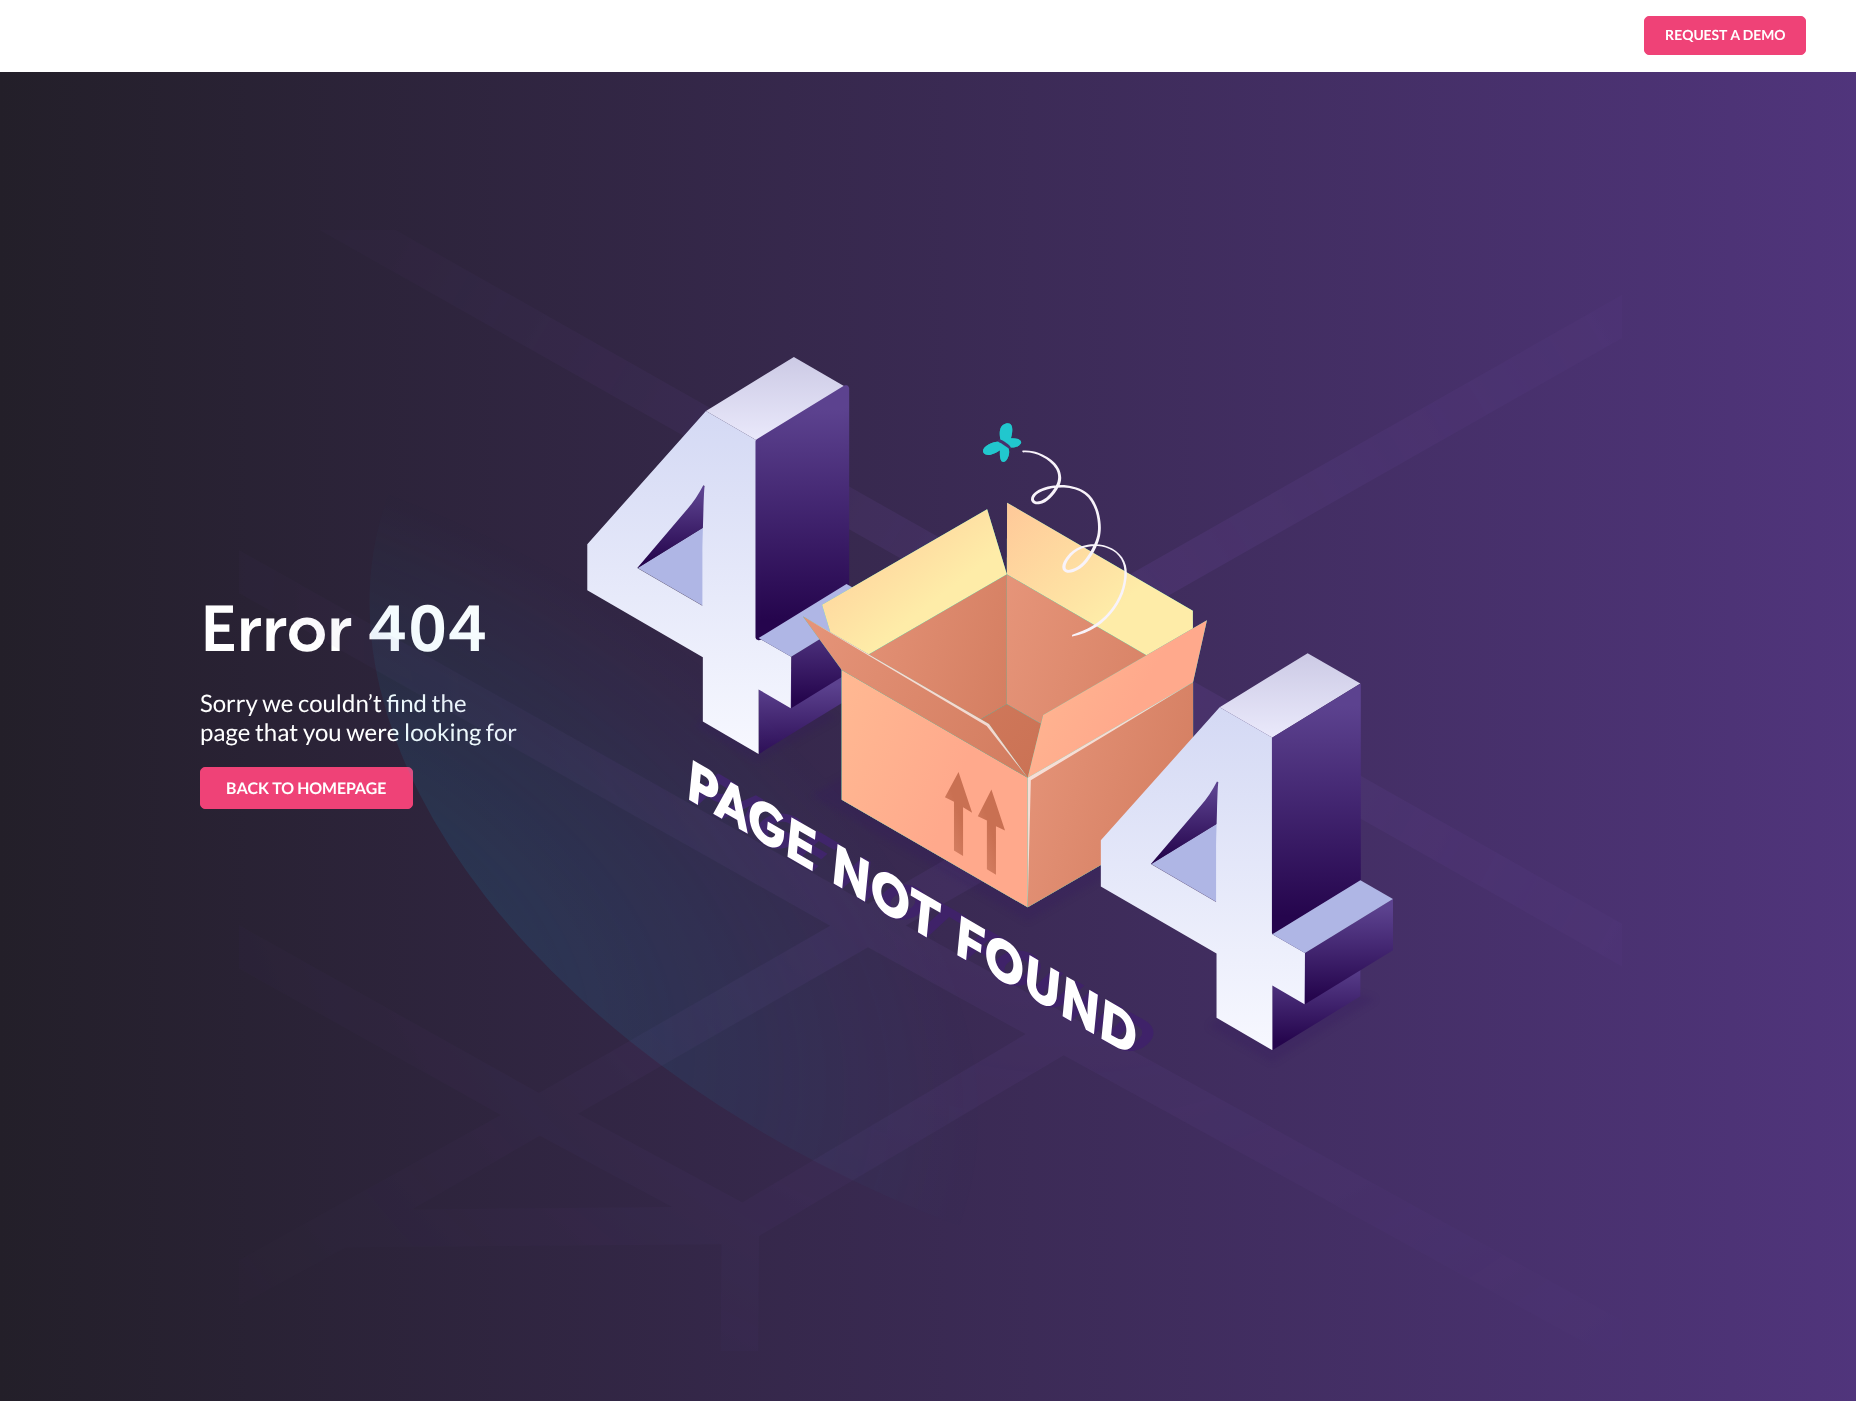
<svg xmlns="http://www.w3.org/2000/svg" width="1856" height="1401">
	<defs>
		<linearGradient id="g1" gradientUnits="userSpaceOnUse" x1="0" y1="701" x2="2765" y2="701"><stop offset="0" stop-color="#231F29" /><stop offset="1" stop-color="#663FA4" /></linearGradient>
	</defs>
	<rect width="100%" height="100%" fill="#FFFFFF" />
	<rect x="1644.5" y="16.5" width="161" height="38" rx="4.5" fill="#EF4277" stroke="#EF4277" />
	<text x="1665" y="40" font-family="Lato" font-size="14" font-weight="700" fill="#FFFFFF">REQUEST A DEMO</text>
	<rect x="0" y="72" width="1856" height="1329" fill="url(#g1)" />
	<text x="200" y="651" font-family="Museo Sans" font-size="64" font-weight="600" fill="#FFFFFF">Error 404</text>
	<g font-family="Lato" font-size="24" fill="#FFFFFF">
		<text x="200" y="712">Sorry we couldn’t find the</text>
		<text x="200" y="741">page that you were looking for</text>
	</g>
	<rect x="200.5" y="767.5" width="212" height="41" rx="4.5" fill="#EF4277" stroke="#EF4277" />
	<text x="226" y="794" font-family="Lato" font-size="16" font-weight="700" fill="#FFFFFF">BACK TO HOMEPAGE</text>
	<image x="239" y="230" width="1383" height="1121" href="assets/img1.png" />
</svg>
